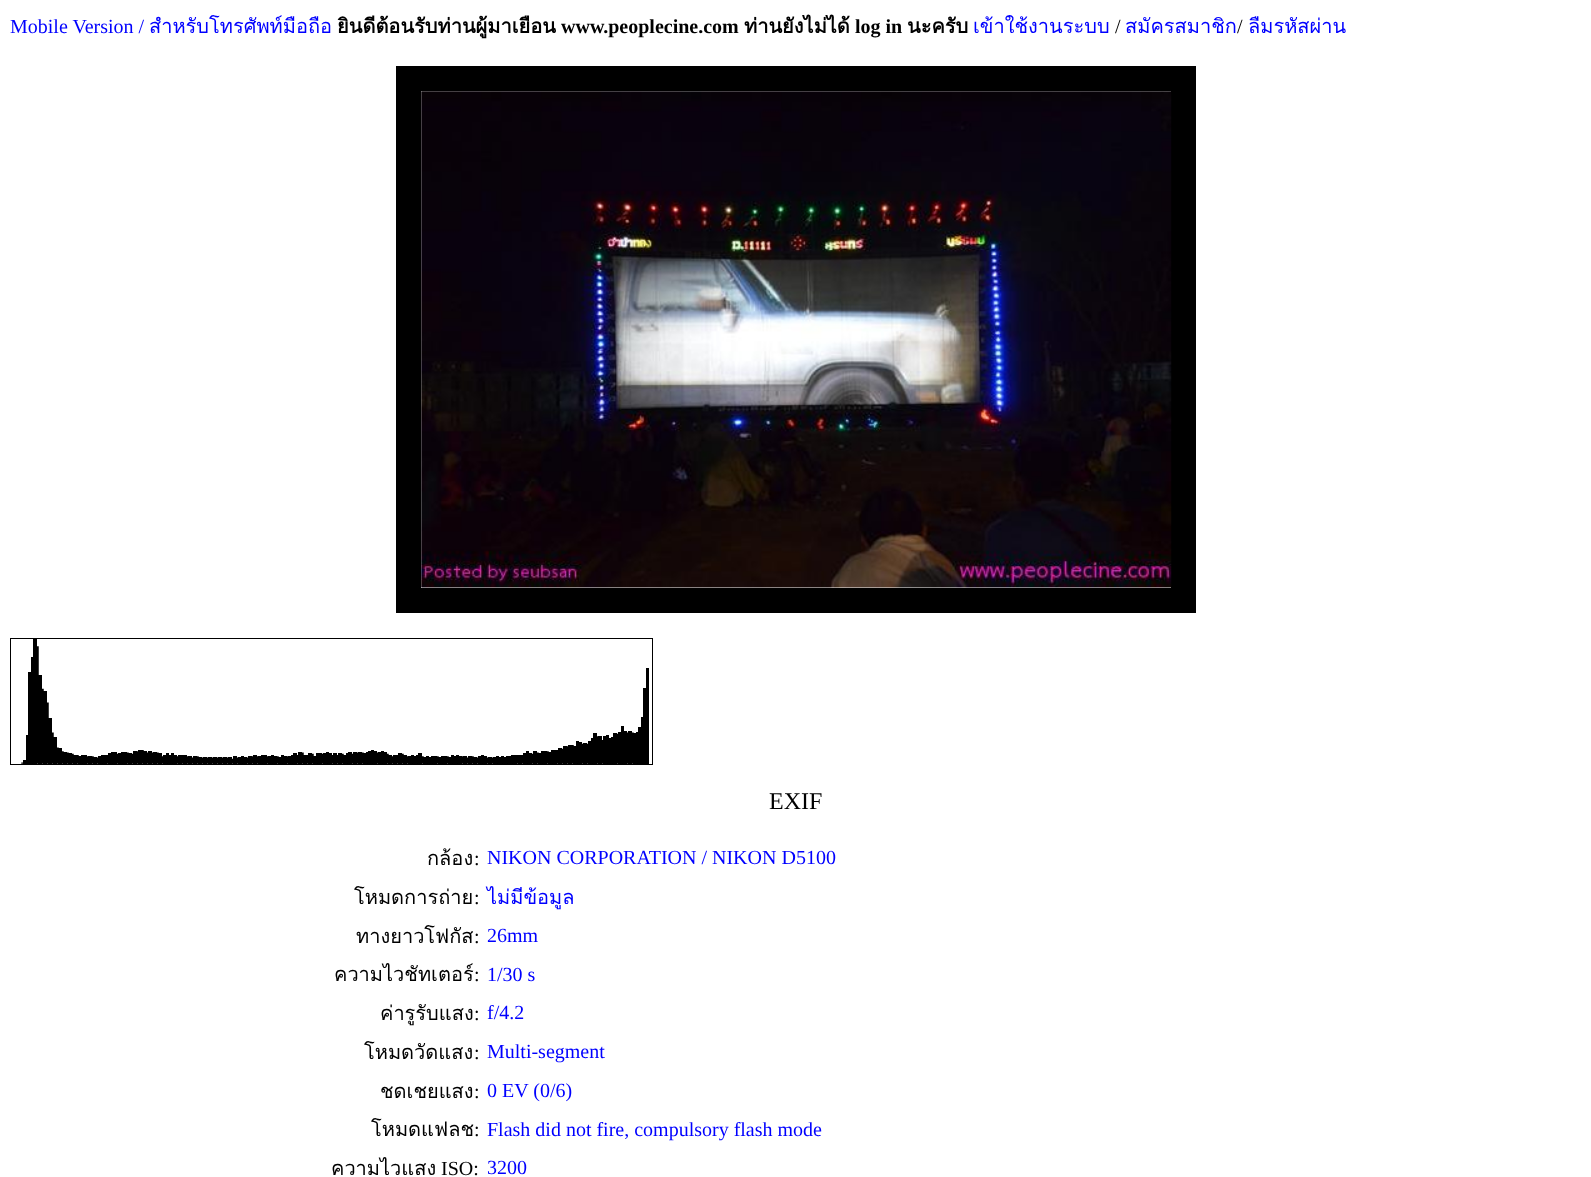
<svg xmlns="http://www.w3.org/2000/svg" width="1591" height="1177">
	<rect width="100%" height="100%" fill="#FFFFFF" />
	<text x="10" y="33" font-family="Liberation Serif" font-size="20" fill="#0000FF">Mobile Version /</text>
	<g font-family="Loma" font-size="20" fill="#0000FF">
		<text x="149" y="33">สำหรับโทรศัพท์มือถือ</text>
		<text x="973" y="33">เข้าใช้งานระบบ</text>
	</g>
	<text x="1237" y="33" font-family="Liberation Serif" font-size="20" fill="#000000">/</text>
	<text x="1248" y="33" font-family="Loma" font-size="20" fill="#0000FF">ลืมรหัสผ่าน</text>
	<rect x="408.5" y="78.5" width="775" height="522" fill="none" stroke="#000000" stroke-width="25" />
	<image x="421" y="91" width="751" height="497" href="assets/img1.png" />
	<rect x="10.5" y="638.5" width="642" height="126" fill="none" stroke="#000000" />
	<rect x="28" y="672" width="3" height="92" fill="#000000" />
	<rect x="31" y="657" width="2" height="107" fill="#000000" />
	<rect x="33" y="639" width="4" height="125" fill="#000000" />
	<image x="37" y="646" width="2" height="118" href="assets/img2.png" />
	<rect x="646" y="668" width="3" height="96" fill="#000000" />
	<rect x="38" y="675" width="4" height="89" fill="#000000" />
	<image x="42" y="688" width="2" height="76" href="assets/img3.png" />
	<rect x="643" y="688" width="3" height="76" fill="#000000" />
	<rect x="43" y="691" width="4" height="73" fill="#000000" />
	<image x="47" y="702" width="2" height="62" href="assets/img4.png" />
	<rect x="641" y="717" width="2" height="47" fill="#000000" />
	<rect x="48" y="718" width="4" height="46" fill="#000000" />
	<image x="52" y="732" width="2" height="32" href="assets/img5.png" />
	<rect x="593" y="733" width="4" height="31" fill="#000000" />
	<rect x="613" y="733" width="4" height="31" fill="#000000" />
	<image x="617" y="733" width="1" height="31" href="assets/img6.png" />
	<rect x="618" y="732" width="3" height="32" fill="#000000" />
	<rect x="621" y="726" width="3" height="38" fill="#000000" />
	<rect x="624" y="731" width="3" height="33" fill="#000000" />
	<image x="627" y="732" width="1" height="32" href="assets/img7.png" />
	<rect x="628" y="731" width="4" height="33" fill="#000000" />
	<image x="632" y="732" width="2" height="32" href="assets/img5.png" />
	<rect x="636" y="732" width="2" height="32" fill="#000000" />
	<rect x="638" y="727" width="3" height="37" fill="#000000" />
	<rect x="23" y="760" width="4" height="4" fill="#000000" />
	<rect x="26" y="735" width="2" height="29" fill="#000000" />
	<rect x="53" y="737" width="4" height="27" fill="#000000" />
	<rect x="563" y="746" width="4" height="18" fill="#000000" />
	<image x="567" y="746" width="1" height="18" href="assets/img8.png" />
	<rect x="568" y="745" width="4" height="19" fill="#000000" />
	<image x="572" y="745" width="2" height="19" href="assets/img9.png" />
	<rect x="576" y="741" width="3" height="23" fill="#000000" />
	<rect x="579" y="742" width="3" height="22" fill="#000000" />
	<image x="582" y="743" width="1" height="21" href="assets/img10.png" />
	<rect x="583" y="743" width="4" height="21" fill="#000000" />
	<image x="587" y="743" width="1" height="21" href="assets/img10.png" />
	<rect x="588" y="741" width="3" height="23" fill="#000000" />
	<rect x="591" y="738" width="2" height="26" fill="#000000" />
	<image x="597" y="736" width="1" height="28" href="assets/img11.png" />
	<rect x="598" y="736" width="4" height="28" fill="#000000" />
	<image x="602" y="740" width="1" height="24" href="assets/img12.png" />
	<rect x="603" y="736" width="3" height="28" fill="#000000" />
	<rect x="606" y="735" width="3" height="29" fill="#000000" />
	<rect x="609" y="738" width="2" height="26" fill="#000000" />
	<rect x="611" y="737" width="2" height="27" fill="#000000" />
	<rect x="633" y="733" width="3" height="31" fill="#000000" />
	<image x="57" y="747" width="2" height="17" href="assets/img13.png" />
	<rect x="573" y="746" width="3" height="18" fill="#000000" />
	<rect x="58" y="748" width="4" height="16" fill="#000000" />
	<image x="62" y="751" width="2" height="13" href="assets/img14.png" />
	<rect x="133" y="751" width="4" height="13" fill="#000000" />
	<image x="137" y="751" width="1" height="13" href="assets/img15.png" />
	<rect x="138" y="750" width="4" height="14" fill="#000000" />
	<image x="142" y="750" width="2" height="14" href="assets/img16.png" />
	<rect x="371" y="750" width="3" height="14" fill="#000000" />
	<rect x="551" y="750" width="6" height="14" fill="#000000" />
	<image x="557" y="750" width="1" height="14" href="assets/img17.png" />
	<rect x="558" y="748" width="4" height="16" fill="#000000" />
	<image x="562" y="748" width="1" height="16" href="assets/img18.png" />
	<rect x="63" y="752" width="4" height="12" fill="#000000" />
	<image x="67" y="752" width="2" height="12" href="assets/img19.png" />
	<rect x="111" y="752" width="6" height="12" fill="#000000" />
	<rect x="121" y="752" width="6" height="12" fill="#000000" />
	<image x="127" y="752" width="2" height="12" href="assets/img19.png" />
	<rect x="143" y="751" width="4" height="13" fill="#000000" />
	<image x="147" y="752" width="1" height="12" href="assets/img20.png" />
	<rect x="148" y="751" width="4" height="13" fill="#000000" />
	<image x="152" y="752" width="1" height="12" href="assets/img20.png" />
	<rect x="153" y="752" width="4" height="12" fill="#000000" />
	<image x="157" y="752" width="2" height="12" href="assets/img19.png" />
	<rect x="298" y="752" width="4" height="12" fill="#000000" />
	<image x="302" y="752" width="2" height="12" href="assets/img19.png" />
	<rect x="326" y="752" width="3" height="12" fill="#000000" />
	<rect x="348" y="752" width="4" height="12" fill="#000000" />
	<rect x="353" y="752" width="4" height="12" fill="#000000" />
	<image x="357" y="752" width="1" height="12" href="assets/img20.png" />
	<rect x="358" y="752" width="4" height="12" fill="#000000" />
	<image x="362" y="752" width="2" height="12" href="assets/img19.png" />
	<rect x="366" y="752" width="2" height="12" fill="#000000" />
	<rect x="368" y="751" width="3" height="13" fill="#000000" />
	<rect x="374" y="751" width="3" height="13" fill="#000000" />
	<image x="377" y="752" width="1" height="12" href="assets/img20.png" />
	<rect x="378" y="752" width="3" height="12" fill="#000000" />
	<rect x="381" y="751" width="3" height="13" fill="#000000" />
	<rect x="384" y="752" width="3" height="12" fill="#000000" />
	<rect x="526" y="751" width="3" height="13" fill="#000000" />
	<rect x="533" y="751" width="4" height="13" fill="#000000" />
	<image x="537" y="752" width="2" height="12" href="assets/img19.png" />
	<rect x="541" y="751" width="6" height="13" fill="#000000" />
	<image x="547" y="751" width="2" height="13" href="assets/img14.png" />
	<rect x="68" y="753" width="4" height="11" fill="#000000" />
	<image x="72" y="753" width="2" height="11" href="assets/img21.png" />
	<rect x="108" y="753" width="3" height="11" fill="#000000" />
	<image x="117" y="753" width="1" height="11" href="assets/img22.png" />
	<rect x="118" y="753" width="3" height="11" fill="#000000" />
	<rect x="128" y="753" width="4" height="11" fill="#000000" />
	<image x="132" y="753" width="1" height="11" href="assets/img22.png" />
	<rect x="158" y="753" width="4" height="11" fill="#000000" />
	<rect x="166" y="753" width="3" height="11" fill="#000000" />
	<rect x="171" y="753" width="3" height="11" fill="#000000" />
	<rect x="293" y="753" width="4" height="11" fill="#000000" />
	<rect x="308" y="753" width="4" height="11" fill="#000000" />
	<image x="312" y="753" width="2" height="11" href="assets/img21.png" />
	<rect x="316" y="753" width="6" height="11" fill="#000000" />
	<image x="322" y="753" width="1" height="11" href="assets/img22.png" />
	<rect x="323" y="753" width="3" height="11" fill="#000000" />
	<rect x="329" y="753" width="3" height="11" fill="#000000" />
	<rect x="333" y="753" width="4" height="11" fill="#000000" />
	<rect x="338" y="753" width="4" height="11" fill="#000000" />
	<image x="342" y="753" width="2" height="11" href="assets/img21.png" />
	<rect x="346" y="753" width="2" height="11" fill="#000000" />
	<image x="352" y="753" width="1" height="11" href="assets/img22.png" />
	<rect x="363" y="753" width="3" height="11" fill="#000000" />
	<image x="387" y="753" width="2" height="11" href="assets/img21.png" />
	<rect x="398" y="753" width="4" height="11" fill="#000000" />
	<image x="402" y="753" width="2" height="11" href="assets/img21.png" />
	<rect x="418" y="753" width="4" height="11" fill="#000000" />
	<rect x="523" y="753" width="3" height="11" fill="#000000" />
	<rect x="529" y="753" width="3" height="11" fill="#000000" />
	<image x="532" y="753" width="1" height="11" href="assets/img22.png" />
	<rect x="538" y="753" width="3" height="11" fill="#000000" />
	<rect x="548" y="752" width="3" height="12" fill="#000000" />
	<rect x="73" y="755" width="4" height="9" fill="#000000" />
	<image x="77" y="755" width="2" height="9" href="assets/img23.png" />
	<rect x="81" y="755" width="6" height="9" fill="#000000" />
	<rect x="101" y="755" width="6" height="9" fill="#000000" />
	<image x="107" y="755" width="1" height="9" href="assets/img24.png" />
	<rect x="163" y="755" width="3" height="9" fill="#000000" />
	<rect x="169" y="755" width="2" height="9" fill="#000000" />
	<rect x="174" y="755" width="3" height="9" fill="#000000" />
	<rect x="178" y="755" width="4" height="9" fill="#000000" />
	<image x="182" y="755" width="1" height="9" href="assets/img24.png" />
	<rect x="183" y="755" width="4" height="9" fill="#000000" />
	<rect x="253" y="755" width="4" height="9" fill="#000000" />
	<rect x="261" y="755" width="6" height="9" fill="#000000" />
	<rect x="271" y="755" width="3" height="9" fill="#000000" />
	<rect x="281" y="755" width="3" height="9" fill="#000000" />
	<rect x="291" y="755" width="2" height="9" fill="#000000" />
	<image x="297" y="755" width="1" height="9" href="assets/img24.png" />
	<rect x="303" y="755" width="4" height="9" fill="#000000" />
	<image x="307" y="755" width="1" height="9" href="assets/img24.png" />
	<image x="332" y="755" width="1" height="9" href="assets/img24.png" />
	<image x="337" y="755" width="1" height="9" href="assets/img24.png" />
	<rect x="343" y="755" width="3" height="9" fill="#000000" />
	<rect x="388" y="755" width="4" height="9" fill="#000000" />
	<rect x="393" y="755" width="4" height="9" fill="#000000" />
	<image x="397" y="755" width="1" height="9" href="assets/img24.png" />
	<rect x="403" y="755" width="4" height="9" fill="#000000" />
	<rect x="411" y="755" width="3" height="9" fill="#000000" />
	<rect x="416" y="755" width="2" height="9" fill="#000000" />
	<rect x="451" y="755" width="3" height="9" fill="#000000" />
	<rect x="456" y="755" width="3" height="9" fill="#000000" />
	<rect x="481" y="755" width="3" height="9" fill="#000000" />
	<rect x="511" y="755" width="6" height="9" fill="#000000" />
	<image x="517" y="755" width="1" height="9" href="assets/img24.png" />
	<rect x="518" y="755" width="4" height="9" fill="#000000" />
	<image x="522" y="755" width="1" height="9" href="assets/img24.png" />
	<rect x="78" y="756" width="3" height="8" fill="#000000" />
	<image x="87" y="756" width="1" height="8" href="assets/img25.png" />
	<rect x="88" y="756" width="4" height="8" fill="#000000" />
	<image x="92" y="756" width="2" height="8" href="assets/img26.png" />
	<rect x="98" y="756" width="3" height="8" fill="#000000" />
	<image x="162" y="756" width="1" height="8" href="assets/img25.png" />
	<image x="177" y="756" width="1" height="8" href="assets/img25.png" />
	<image x="187" y="756" width="1" height="8" href="assets/img25.png" />
	<rect x="188" y="756" width="4" height="8" fill="#000000" />
	<rect x="193" y="756" width="4" height="8" fill="#000000" />
	<image x="197" y="756" width="2" height="8" href="assets/img26.png" />
	<rect x="233" y="756" width="4" height="8" fill="#000000" />
	<rect x="241" y="756" width="3" height="8" fill="#000000" />
	<rect x="248" y="756" width="4" height="8" fill="#000000" />
	<image x="252" y="756" width="1" height="8" href="assets/img25.png" />
	<image x="257" y="756" width="1" height="8" href="assets/img25.png" />
	<rect x="258" y="756" width="3" height="8" fill="#000000" />
	<image x="267" y="756" width="1" height="8" href="assets/img25.png" />
	<rect x="268" y="756" width="3" height="8" fill="#000000" />
	<rect x="274" y="756" width="3" height="8" fill="#000000" />
	<image x="277" y="756" width="2" height="8" href="assets/img26.png" />
	<rect x="284" y="756" width="3" height="8" fill="#000000" />
	<image x="287" y="756" width="1" height="8" href="assets/img25.png" />
	<rect x="288" y="756" width="3" height="8" fill="#000000" />
	<rect x="313" y="756" width="3" height="8" fill="#000000" />
	<image x="392" y="756" width="1" height="8" href="assets/img25.png" />
	<image x="407" y="756" width="1" height="8" href="assets/img25.png" />
	<rect x="408" y="756" width="3" height="8" fill="#000000" />
	<rect x="414" y="756" width="2" height="8" fill="#000000" />
	<image x="422" y="756" width="2" height="8" href="assets/img26.png" />
	<rect x="426" y="756" width="3" height="8" fill="#000000" />
	<rect x="431" y="756" width="6" height="8" fill="#000000" />
	<image x="437" y="756" width="2" height="8" href="assets/img26.png" />
	<rect x="441" y="756" width="6" height="8" fill="#000000" />
	<image x="447" y="756" width="2" height="8" href="assets/img26.png" />
	<rect x="454" y="756" width="2" height="8" fill="#000000" />
	<rect x="459" y="756" width="3" height="8" fill="#000000" />
	<image x="462" y="756" width="1" height="8" href="assets/img25.png" />
	<rect x="463" y="756" width="4" height="8" fill="#000000" />
	<rect x="468" y="756" width="4" height="8" fill="#000000" />
	<image x="472" y="756" width="2" height="8" href="assets/img26.png" />
	<rect x="478" y="756" width="3" height="8" fill="#000000" />
	<rect x="484" y="756" width="3" height="8" fill="#000000" />
	<rect x="496" y="756" width="3" height="8" fill="#000000" />
	<rect x="501" y="756" width="3" height="8" fill="#000000" />
	<rect x="506" y="756" width="5" height="8" fill="#000000" />
	<image x="21" y="762" width="2" height="2" href="assets/img27.png" />
	<rect x="93" y="757" width="4" height="7" fill="#000000" />
	<image x="97" y="757" width="1" height="7" href="assets/img28.png" />
	<image x="192" y="757" width="1" height="7" href="assets/img28.png" />
	<rect x="198" y="757" width="4" height="7" fill="#000000" />
	<image x="202" y="757" width="1" height="7" href="assets/img28.png" />
	<rect x="203" y="757" width="4" height="7" fill="#000000" />
	<image x="207" y="757" width="1" height="7" href="assets/img28.png" />
	<rect x="208" y="757" width="4" height="7" fill="#000000" />
	<image x="212" y="757" width="1" height="7" href="assets/img28.png" />
	<rect x="213" y="757" width="4" height="7" fill="#000000" />
	<image x="217" y="757" width="1" height="7" href="assets/img28.png" />
	<rect x="218" y="757" width="4" height="7" fill="#000000" />
	<image x="222" y="757" width="1" height="7" href="assets/img28.png" />
	<rect x="223" y="757" width="4" height="7" fill="#000000" />
	<image x="227" y="757" width="1" height="7" href="assets/img28.png" />
	<rect x="228" y="757" width="4" height="7" fill="#000000" />
	<image x="232" y="758" width="1" height="6" href="assets/img29.png" />
	<image x="237" y="757" width="1" height="7" href="assets/img28.png" />
	<rect x="238" y="757" width="3" height="7" fill="#000000" />
	<rect x="244" y="757" width="3" height="7" fill="#000000" />
	<image x="247" y="757" width="1" height="7" href="assets/img28.png" />
	<rect x="278" y="757" width="3" height="7" fill="#000000" />
	<rect x="423" y="757" width="3" height="7" fill="#000000" />
	<rect x="429" y="757" width="2" height="7" fill="#000000" />
	<rect x="438" y="757" width="3" height="7" fill="#000000" />
	<rect x="448" y="757" width="3" height="7" fill="#000000" />
	<image x="467" y="757" width="1" height="7" href="assets/img28.png" />
	<rect x="473" y="757" width="4" height="7" fill="#000000" />
	<image x="477" y="757" width="1" height="7" href="assets/img28.png" />
	<image x="487" y="757" width="1" height="7" href="assets/img28.png" />
	<rect x="488" y="757" width="4" height="7" fill="#000000" />
	<image x="492" y="757" width="1" height="7" href="assets/img28.png" />
	<rect x="493" y="757" width="3" height="7" fill="#000000" />
	<rect x="499" y="757" width="2" height="7" fill="#000000" />
	<rect x="504" y="757" width="2" height="7" fill="#000000" />
	<text x="769" y="809" font-family="Liberation Serif" font-size="24" fill="#000000">EXIF</text>
	<text x="427" y="865" font-family="Loma" font-size="20" fill="#000000">กล้อง</text>
	<text x="474" y="865" font-family="Liberation Serif" font-size="20" fill="#000000">:</text>
	<text x="487" y="864" font-family="Liberation Serif" font-size="20" fill="#0000FF">NIKON CORPORATION / NIKON D5100</text>
	<text x="354" y="904" font-family="Loma" font-size="20" fill="#000000">โหมดการถ่าย</text>
	<text x="474" y="904" font-family="Liberation Serif" font-size="20" fill="#000000">:</text>
	<text x="487" y="904" font-family="Loma" font-size="20" fill="#0000FF">ไม่มีข้อมูล</text>
	<text x="356" y="943" font-family="Loma" font-size="20" fill="#000000">ทางยาวโฟกัส</text>
	<text x="474" y="943" font-family="Liberation Serif" font-size="20" fill="#000000">:</text>
	<text x="487" y="942" font-family="Liberation Serif" font-size="20" fill="#0000FF">26mm</text>
	<text x="334" y="981" font-family="Loma" font-size="20" fill="#000000">ความไวชัทเตอร์</text>
	<text x="474" y="981" font-family="Liberation Serif" font-size="20" fill="#000000">:</text>
	<text x="487" y="981" font-family="Liberation Serif" font-size="20" fill="#0000FF">1/30 s</text>
	<text x="380" y="1020" font-family="Loma" font-size="20" fill="#000000">ค่ารูรับแสง</text>
	<text x="474" y="1020" font-family="Liberation Serif" font-size="20" fill="#000000">:</text>
	<text x="487" y="1019" font-family="Liberation Serif" font-size="20" fill="#0000FF">f/4.2</text>
	<text x="364" y="1059" font-family="Loma" font-size="20" fill="#000000">โหมดวัดแสง</text>
	<text x="474" y="1059" font-family="Liberation Serif" font-size="20" fill="#000000">:</text>
	<text x="487" y="1058" font-family="Liberation Serif" font-size="20" fill="#0000FF">Multi-segment</text>
	<text x="380" y="1098" font-family="Loma" font-size="20" fill="#000000">ชดเชยแสง</text>
	<text x="474" y="1098" font-family="Liberation Serif" font-size="20" fill="#000000">:</text>
	<text x="487" y="1097" font-family="Liberation Serif" font-size="20" fill="#0000FF">0 EV (0/6)</text>
	<text x="371" y="1136" font-family="Loma" font-size="20" fill="#000000">โหมดแฟลช</text>
	<text x="474" y="1136" font-family="Liberation Serif" font-size="20" fill="#000000">:</text>
	<text x="487" y="1136" font-family="Liberation Serif" font-size="20" fill="#0000FF">Flash did not fire, compulsory flash mode</text>
	<text x="331" y="1175" font-family="Loma" font-size="20" fill="#000000">ความไวแสง</text>
	<text x="441" y="1175" font-family="Liberation Serif" font-size="20" fill="#000000">ISO:</text>
	<text x="487" y="1174" font-family="Liberation Serif" font-size="20" fill="#0000FF">3200</text>
	<text x="1125" y="33" font-family="Loma" font-size="20" fill="#0000FF">สมัครสมาชิก</text>
	<text x="1115" y="33" font-family="Liberation Serif" font-size="20" fill="#000000">/</text>
	<text x="337" y="33" font-family="Loma" font-size="20" font-weight="700" fill="#000000">ยินดีต้อนรับท่านผู้มาเยือน</text>
	<text x="561" y="33" font-family="Liberation Serif" font-size="20" font-weight="700" fill="#000000">www.peoplecine.com</text>
	<text x="744" y="33" font-family="Loma" font-size="20" font-weight="700" fill="#000000">ท่านยังไม่ได้</text>
	<text x="855" y="33" font-family="Liberation Serif" font-size="20" font-weight="700" fill="#000000">log in</text>
	<text x="907" y="33" font-family="Loma" font-size="20" font-weight="700" fill="#000000">นะครับ</text>
</svg>
